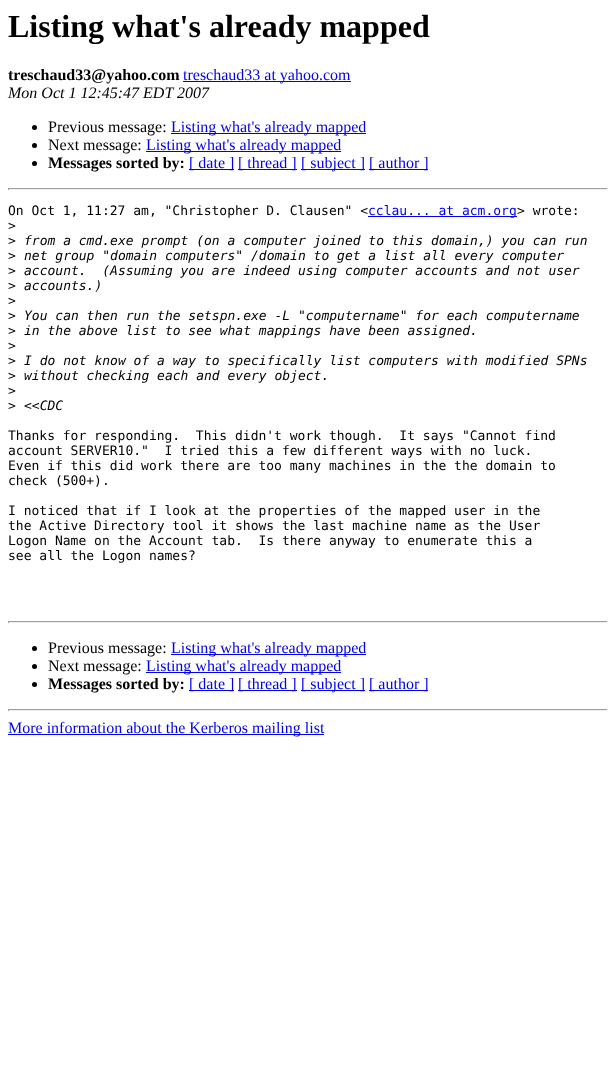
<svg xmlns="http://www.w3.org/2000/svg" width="616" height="1080">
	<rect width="100%" height="100%" fill="#FFFFFF" />
	<text x="8" y="37" font-family="Liberation Serif" font-size="32" font-weight="700" fill="#000000">Listing what's already mapped</text>
	<text x="8" y="80" font-family="Liberation Serif" font-size="16" font-weight="700" fill="#000000">treschaud33@yahoo.com</text>
	<rect x="183" y="81" width="168" height="1" fill="#0000EE" />
	<text x="183" y="80" font-family="Liberation Serif" font-size="16" fill="#0000EE">treschaud33 at yahoo.com</text>
	<text x="8" y="98" font-family="Liberation Serif" font-size="16" font-style="italic" fill="#000000">Mon Oct 1 12:45:47 EDT 2007</text>
	<circle cx="34.5" cy="127.5" r="2.5" fill="#000000" />
	<text x="48" y="132" font-family="Liberation Serif" font-size="16" fill="#000000">Previous message:</text>
	<rect x="171" y="133" width="195" height="1" fill="#0000EE" />
	<text x="171" y="132" font-family="Liberation Serif" font-size="16" fill="#0000EE">Listing what's already mapped</text>
	<circle cx="34.5" cy="145.5" r="2.5" fill="#000000" />
	<text x="48" y="150" font-family="Liberation Serif" font-size="16" fill="#000000">Next message:</text>
	<rect x="146" y="151" width="195" height="1" fill="#0000EE" />
	<text x="146" y="150" font-family="Liberation Serif" font-size="16" fill="#0000EE">Listing what's already mapped</text>
	<circle cx="34.5" cy="163.5" r="2.5" fill="#000000" />
	<text x="48" y="168" font-family="Liberation Serif" font-size="16" font-weight="700" fill="#000000">Messages sorted by:</text>
	<rect x="189" y="169" width="45" height="1" fill="#0000EE" />
	<text x="189" y="168" font-family="Liberation Serif" font-size="16" fill="#0000EE">[ date ]</text>
	<rect x="238" y="169" width="59" height="1" fill="#0000EE" />
	<text x="238" y="168" font-family="Liberation Serif" font-size="16" fill="#0000EE">[ thread ]</text>
	<rect x="301" y="169" width="64" height="1" fill="#0000EE" />
	<text x="301" y="168" font-family="Liberation Serif" font-size="16" fill="#0000EE">[ subject ]</text>
	<rect x="369" y="169" width="59" height="1" fill="#0000EE" />
	<text x="369" y="168" font-family="Liberation Serif" font-size="16" fill="#0000EE">[ author ]</text>
	<rect x="8" y="188" width="600" height="1" fill="#9F9F9F" />
	<rect x="607" y="188" width="1" height="2" fill="#EEEEEE" />
	<rect x="8" y="189" width="600" height="1" fill="#EEEEEE" />
	<rect x="8" y="188" width="1" height="2" fill="#9F9F9F" />
	<text x="8" y="215" font-family="DejaVu Sans Mono" font-size="13" fill="#000000">On Oct 1, 11:27 am, "Christopher D. Clausen" &lt;</text>
	<rect x="368" y="216" width="149" height="1" fill="#0000EE" />
	<text x="368" y="215" font-family="DejaVu Sans Mono" font-size="13" fill="#0000EE">cclau... at acm.org</text>
	<g font-family="DejaVu Sans Mono" font-size="13" fill="#000000">
		<text x="517" y="215">&gt; wrote:</text>
		<text x="8" y="230">&gt;</text>
		<text x="8" y="245">&gt;</text>
	</g>
	<text x="24" y="245" font-family="DejaVu Sans Mono" font-size="13" font-style="italic" fill="#000000">from a cmd.exe prompt (on a computer joined to this domain,) you can run</text>
	<text x="8" y="260" font-family="DejaVu Sans Mono" font-size="13" fill="#000000">&gt;</text>
	<text x="24" y="260" font-family="DejaVu Sans Mono" font-size="13" font-style="italic" fill="#000000">net group "domain computers" /domain to get a list all every computer</text>
	<text x="8" y="275" font-family="DejaVu Sans Mono" font-size="13" fill="#000000">&gt;</text>
	<text x="24" y="275" font-family="DejaVu Sans Mono" font-size="13" font-style="italic" fill="#000000" xml:space="preserve">account.  (Assuming you are indeed using computer accounts and not user</text>
	<text x="8" y="290" font-family="DejaVu Sans Mono" font-size="13" fill="#000000">&gt;</text>
	<text x="24" y="290" font-family="DejaVu Sans Mono" font-size="13" font-style="italic" fill="#000000">accounts.)</text>
	<g font-family="DejaVu Sans Mono" font-size="13" fill="#000000">
		<text x="8" y="305">&gt;</text>
		<text x="8" y="320">&gt;</text>
	</g>
	<text x="24" y="320" font-family="DejaVu Sans Mono" font-size="13" font-style="italic" fill="#000000">You can then run the setspn.exe -L "computername" for each computername</text>
	<text x="8" y="335" font-family="DejaVu Sans Mono" font-size="13" fill="#000000">&gt;</text>
	<text x="24" y="335" font-family="DejaVu Sans Mono" font-size="13" font-style="italic" fill="#000000">in the above list to see what mappings have been assigned.</text>
	<g font-family="DejaVu Sans Mono" font-size="13" fill="#000000">
		<text x="8" y="350">&gt;</text>
		<text x="8" y="365">&gt;</text>
	</g>
	<text x="24" y="365" font-family="DejaVu Sans Mono" font-size="13" font-style="italic" fill="#000000">I do not know of a way to specifically list computers with modified SPNs</text>
	<text x="8" y="380" font-family="DejaVu Sans Mono" font-size="13" fill="#000000">&gt;</text>
	<text x="24" y="380" font-family="DejaVu Sans Mono" font-size="13" font-style="italic" fill="#000000">without checking each and every object.</text>
	<g font-family="DejaVu Sans Mono" font-size="13" fill="#000000">
		<text x="8" y="395">&gt;</text>
		<text x="8" y="410">&gt;</text>
	</g>
	<text x="24" y="410" font-family="DejaVu Sans Mono" font-size="13" font-style="italic" fill="#000000">&lt;&lt;CDC</text>
	<g font-family="DejaVu Sans Mono" font-size="13" fill="#000000">
		<text x="8" y="440" xml:space="preserve">Thanks for responding.  This didn't work though.  It says "Cannot find</text>
		<text x="8" y="455" xml:space="preserve">account SERVER10."  I tried this a few different ways with no luck.</text>
		<text x="8" y="470">Even if this did work there are too many machines in the the domain to</text>
		<text x="8" y="485">check (500+).</text>
		<text x="8" y="515">I noticed that if I look at the properties of the mapped user in the</text>
		<text x="8" y="530">the Active Directory tool it shows the last machine name as the User</text>
		<text x="8" y="545" xml:space="preserve">Logon Name on the Account tab.  Is there anyway to enumerate this a</text>
		<text x="8" y="560">see all the Logon names?</text>
	</g>
	<rect x="8" y="621" width="600" height="1" fill="#9F9F9F" />
	<rect x="607" y="621" width="1" height="2" fill="#EEEEEE" />
	<rect x="8" y="622" width="600" height="1" fill="#EEEEEE" />
	<rect x="8" y="621" width="1" height="2" fill="#9F9F9F" />
	<circle cx="34.5" cy="648.5" r="2.5" fill="#000000" />
	<text x="48" y="653" font-family="Liberation Serif" font-size="16" fill="#000000">Previous message:</text>
	<rect x="171" y="654" width="195" height="1" fill="#0000EE" />
	<text x="171" y="653" font-family="Liberation Serif" font-size="16" fill="#0000EE">Listing what's already mapped</text>
	<circle cx="34.5" cy="666.5" r="2.5" fill="#000000" />
	<text x="48" y="671" font-family="Liberation Serif" font-size="16" fill="#000000">Next message:</text>
	<rect x="146" y="672" width="195" height="1" fill="#0000EE" />
	<text x="146" y="671" font-family="Liberation Serif" font-size="16" fill="#0000EE">Listing what's already mapped</text>
	<circle cx="34.5" cy="684.5" r="2.5" fill="#000000" />
	<text x="48" y="689" font-family="Liberation Serif" font-size="16" font-weight="700" fill="#000000">Messages sorted by:</text>
	<rect x="189" y="690" width="45" height="1" fill="#0000EE" />
	<text x="189" y="689" font-family="Liberation Serif" font-size="16" fill="#0000EE">[ date ]</text>
	<rect x="238" y="690" width="59" height="1" fill="#0000EE" />
	<text x="238" y="689" font-family="Liberation Serif" font-size="16" fill="#0000EE">[ thread ]</text>
	<rect x="301" y="690" width="64" height="1" fill="#0000EE" />
	<text x="301" y="689" font-family="Liberation Serif" font-size="16" fill="#0000EE">[ subject ]</text>
	<rect x="369" y="690" width="59" height="1" fill="#0000EE" />
	<text x="369" y="689" font-family="Liberation Serif" font-size="16" fill="#0000EE">[ author ]</text>
	<rect x="8" y="709" width="600" height="1" fill="#9F9F9F" />
	<rect x="607" y="709" width="1" height="2" fill="#EEEEEE" />
	<rect x="8" y="710" width="600" height="1" fill="#EEEEEE" />
	<rect x="8" y="709" width="1" height="2" fill="#9F9F9F" />
	<rect x="8" y="734" width="316" height="1" fill="#0000EE" />
	<text x="8" y="733" font-family="Liberation Serif" font-size="16" fill="#0000EE">More information about the Kerberos mailing list</text>
</svg>
